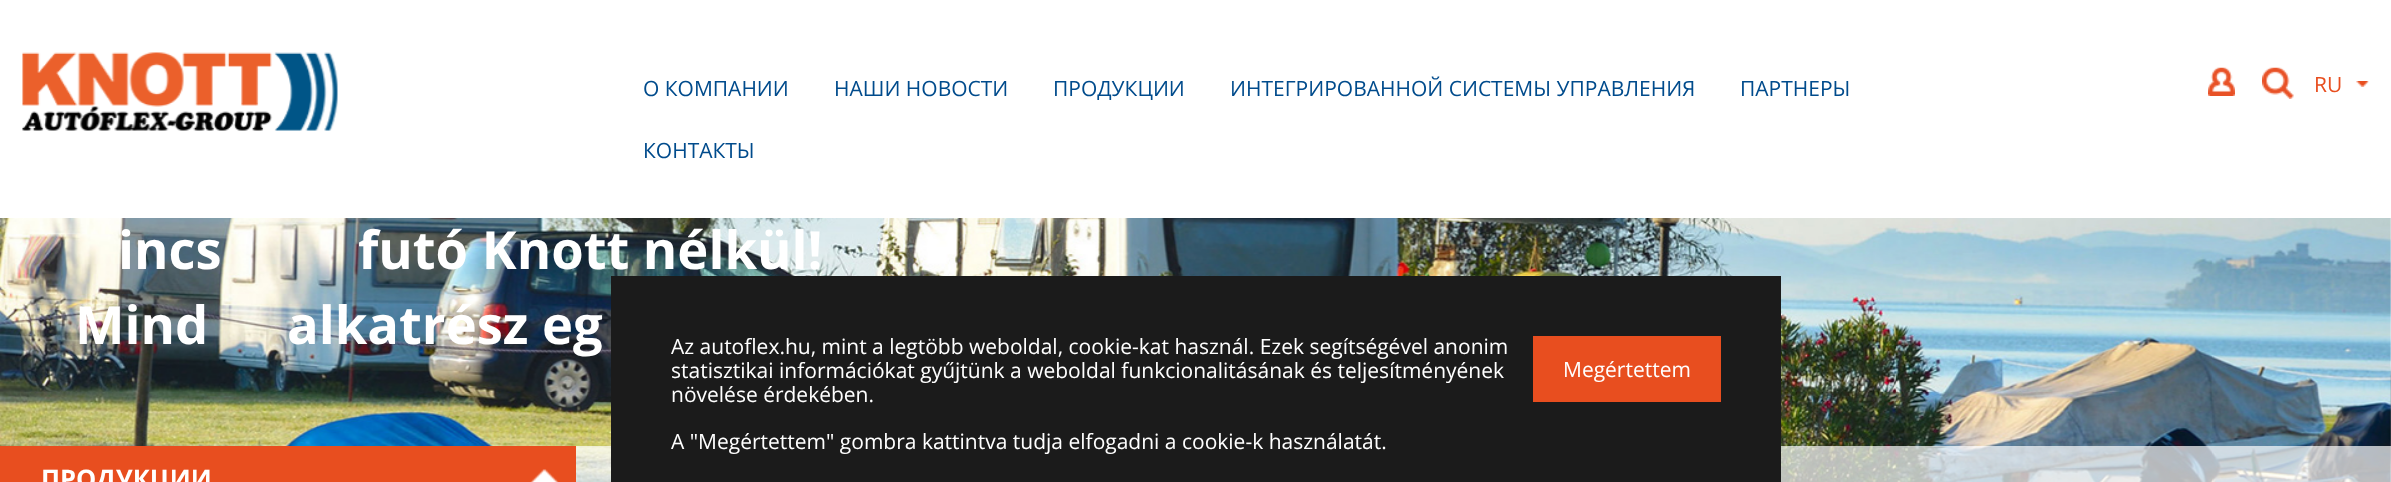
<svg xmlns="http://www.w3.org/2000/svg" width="2391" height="482">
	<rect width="100%" height="100%" fill="#FFFFFF" />
	<image x="22" y="52" width="316" height="79" href="assets/img1.png" />
	<g font-family="Open Sans" font-size="21" fill="#004B8C">
		<text x="643" y="96">О КОМПАНИИ</text>
		<text x="834" y="96">НАШИ НОВОСТИ</text>
		<text x="1053" y="96">ПРОДУКЦИИ</text>
		<text x="1230" y="96">ИНТЕГРИРОВАННОЙ СИСТЕМЫ УПРАВЛЕНИЯ</text>
		<text x="1740" y="96">ПАРТНЕРЫ</text>
		<text x="643" y="158">КОНТАКТЫ</text>
	</g>
	<image x="2208" y="67" width="27" height="29" href="assets/img2.png" />
	<image x="2262" y="67" width="32" height="32" href="assets/img3.png" />
	<image x="2356" y="81" width="13" height="6" href="assets/img4.png" />
	<text x="2314" y="92" font-family="Open Sans" font-size="21" fill="#E84E1F">RU</text>
	<rect x="2286" y="372" width="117" height="90" fill="#808080" filter="blur(4px)" />
	<image x="0" y="218" width="2391" height="264" href="assets/img5.png" />
	<g font-family="Open Sans" font-size="52.5" font-weight="700" fill="#FFFFFF">
		<text x="118" y="269">incs</text>
		<text x="358" y="269">futó Knott nélkül!</text>
		<text x="75" y="344">Mind</text>
		<text x="287" y="344">alkatrész eg</text>
	</g>
	<rect x="576" y="446" width="1815" height="36" fill="#FFFFFF" fill-opacity="0.7" />
	<rect x="0" y="446" width="576" height="36" fill="#E84E1F" />
	<text x="41" y="488" font-family="Open Sans" font-size="25.5" font-weight="700" fill="#FFFFFF">ПРОДУКЦИИ</text>
	<image x="530" y="469" width="29" height="13" href="assets/img6.png" />
	<rect x="611" y="276" width="1170" height="206" fill="#1B1B1B" />
	<g font-family="Open Sans" font-size="21" fill="#FFFFFF">
		<text x="671" y="354">Az autoflex.hu, mint a legtöbb weboldal, cookie-kat használ. Ezek segítségével anonim</text>
		<text x="671" y="378">statisztikai információkat gyűjtünk a weboldal funkcionalitásának és teljesítményének</text>
		<text x="671" y="402">növelése érdekében.</text>
	</g>
	<rect x="1533" y="336" width="188" height="66" fill="#E84E1F" />
	<g font-family="Open Sans" font-size="21" fill="#FFFFFF">
		<text x="1563" y="377">Megértettem</text>
		<text x="671" y="449">A "Megértettem" gombra kattintva tudja elfogadni a cookie-k használatát.</text>
	</g>
</svg>
